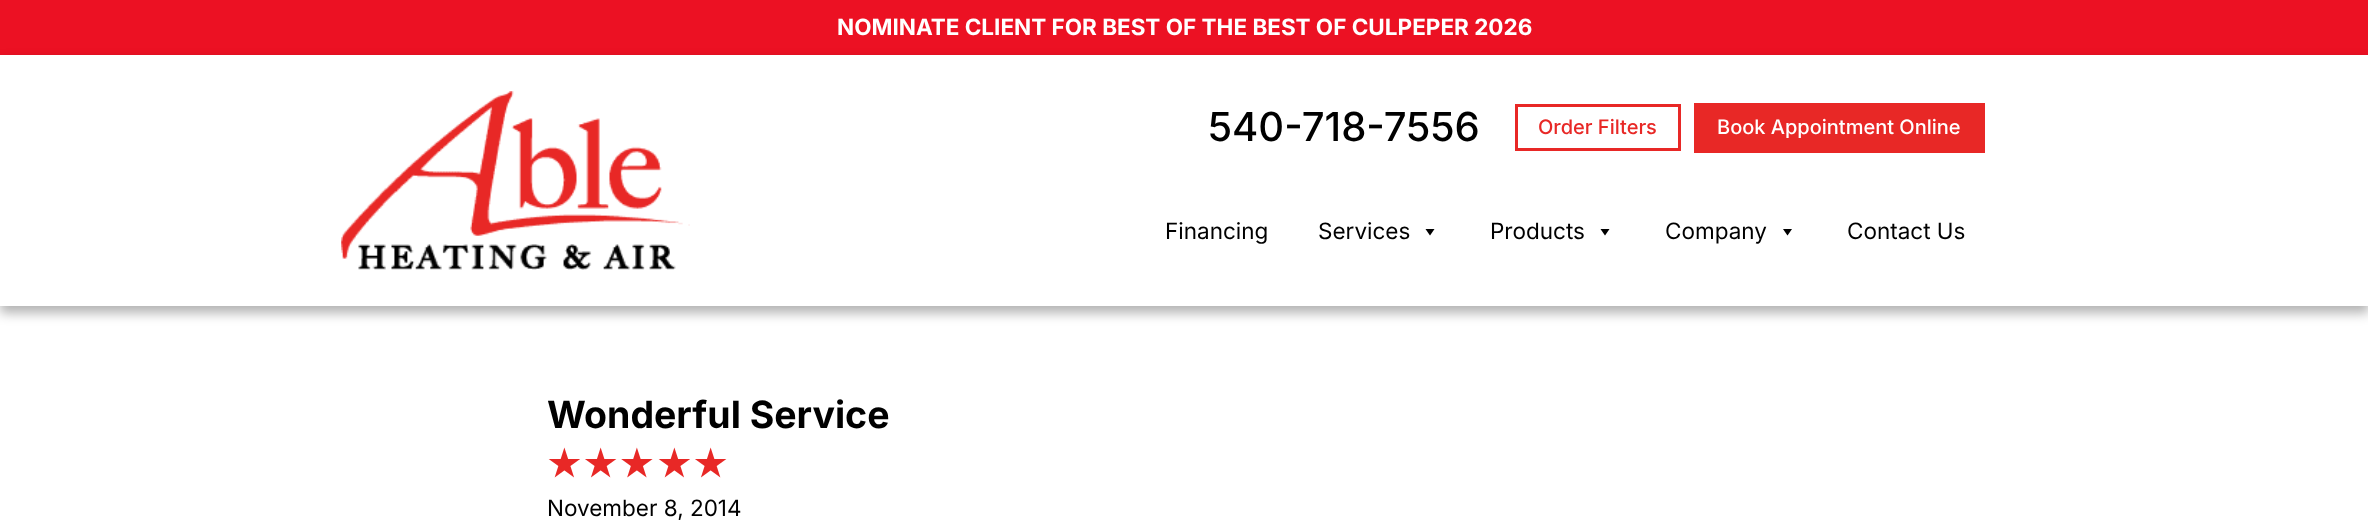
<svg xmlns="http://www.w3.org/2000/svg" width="2368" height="532">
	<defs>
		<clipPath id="clip1"><path d="M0 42H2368V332H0ZM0 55H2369V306H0Z" clip-rule="evenodd" /></clipPath>
	</defs>
	<rect width="100%" height="100%" fill="#FFFFFF" />
	<rect x="0" y="0" width="2368" height="55" fill="#EC1123" />
	<text x="837" y="35" font-family="Inter" font-size="22.5" font-weight="700" fill="#FFFFFF">NOMINATE CLIENT FOR BEST OF THE BEST OF CULPEPER 2026</text>
	<g clip-path="url(#clip1)">
		<rect x="0" y="61" width="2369" height="252" fill="#000000" fill-opacity="0.3" filter="blur(6px)" />
	</g>
	<image x="341" y="91" width="349" height="179" href="assets/img1.png" />
	<text x="1208" y="141" font-family="Inter" font-size="40" font-weight="500" fill="#000000">540-718-7556</text>
	<rect x="1516.5" y="105.5" width="163" height="44" fill="none" stroke="#E82826" stroke-width="3" />
	<text x="1538" y="134" font-family="Inter" font-size="20" font-weight="500" fill="#E82826">Order Filters</text>
	<rect x="1694" y="103" width="291" height="50" fill="#E82826" />
	<text x="1717" y="134" font-family="Inter" font-size="20" font-weight="500" fill="#FFFFFF">Book Appointment Online</text>
	<g font-family="Inter" font-size="22.5" fill="#000000">
		<text x="1165" y="239">Financing</text>
		<text x="1318" y="239">Services</text>
	</g>
	<path d="M1434.5 229L1430 235.5L1425.5 229Z" fill="#000000" />
	<text x="1490" y="239" font-family="Inter" font-size="22.5" fill="#000000">Products</text>
	<path d="M1609.5 229L1605 235.5L1600.5 229Z" fill="#000000" />
	<text x="1665" y="239" font-family="Inter" font-size="22.5" fill="#000000">Company</text>
	<path d="M1792 229L1787.5 235.5L1783 229Z" fill="#000000" />
	<text x="1847" y="239" font-family="Inter" font-size="22.5" fill="#000000">Contact Us</text>
	<text x="547" y="428" font-family="Inter" font-size="37.5" font-weight="700" fill="#000000">Wonderful Service</text>
	<image x="548" y="447" width="32" height="31" href="assets/img2.png" />
	<image x="585" y="447" width="32" height="31" href="assets/img3.png" />
	<image x="621" y="447" width="32" height="31" href="assets/img4.png" />
	<image x="658" y="447" width="32" height="31" href="assets/img2.png" />
	<image x="695" y="447" width="32" height="31" href="assets/img3.png" />
	<text x="547" y="516" font-family="Inter" font-size="22.5" fill="#000000">November 8, 2014</text>
</svg>
